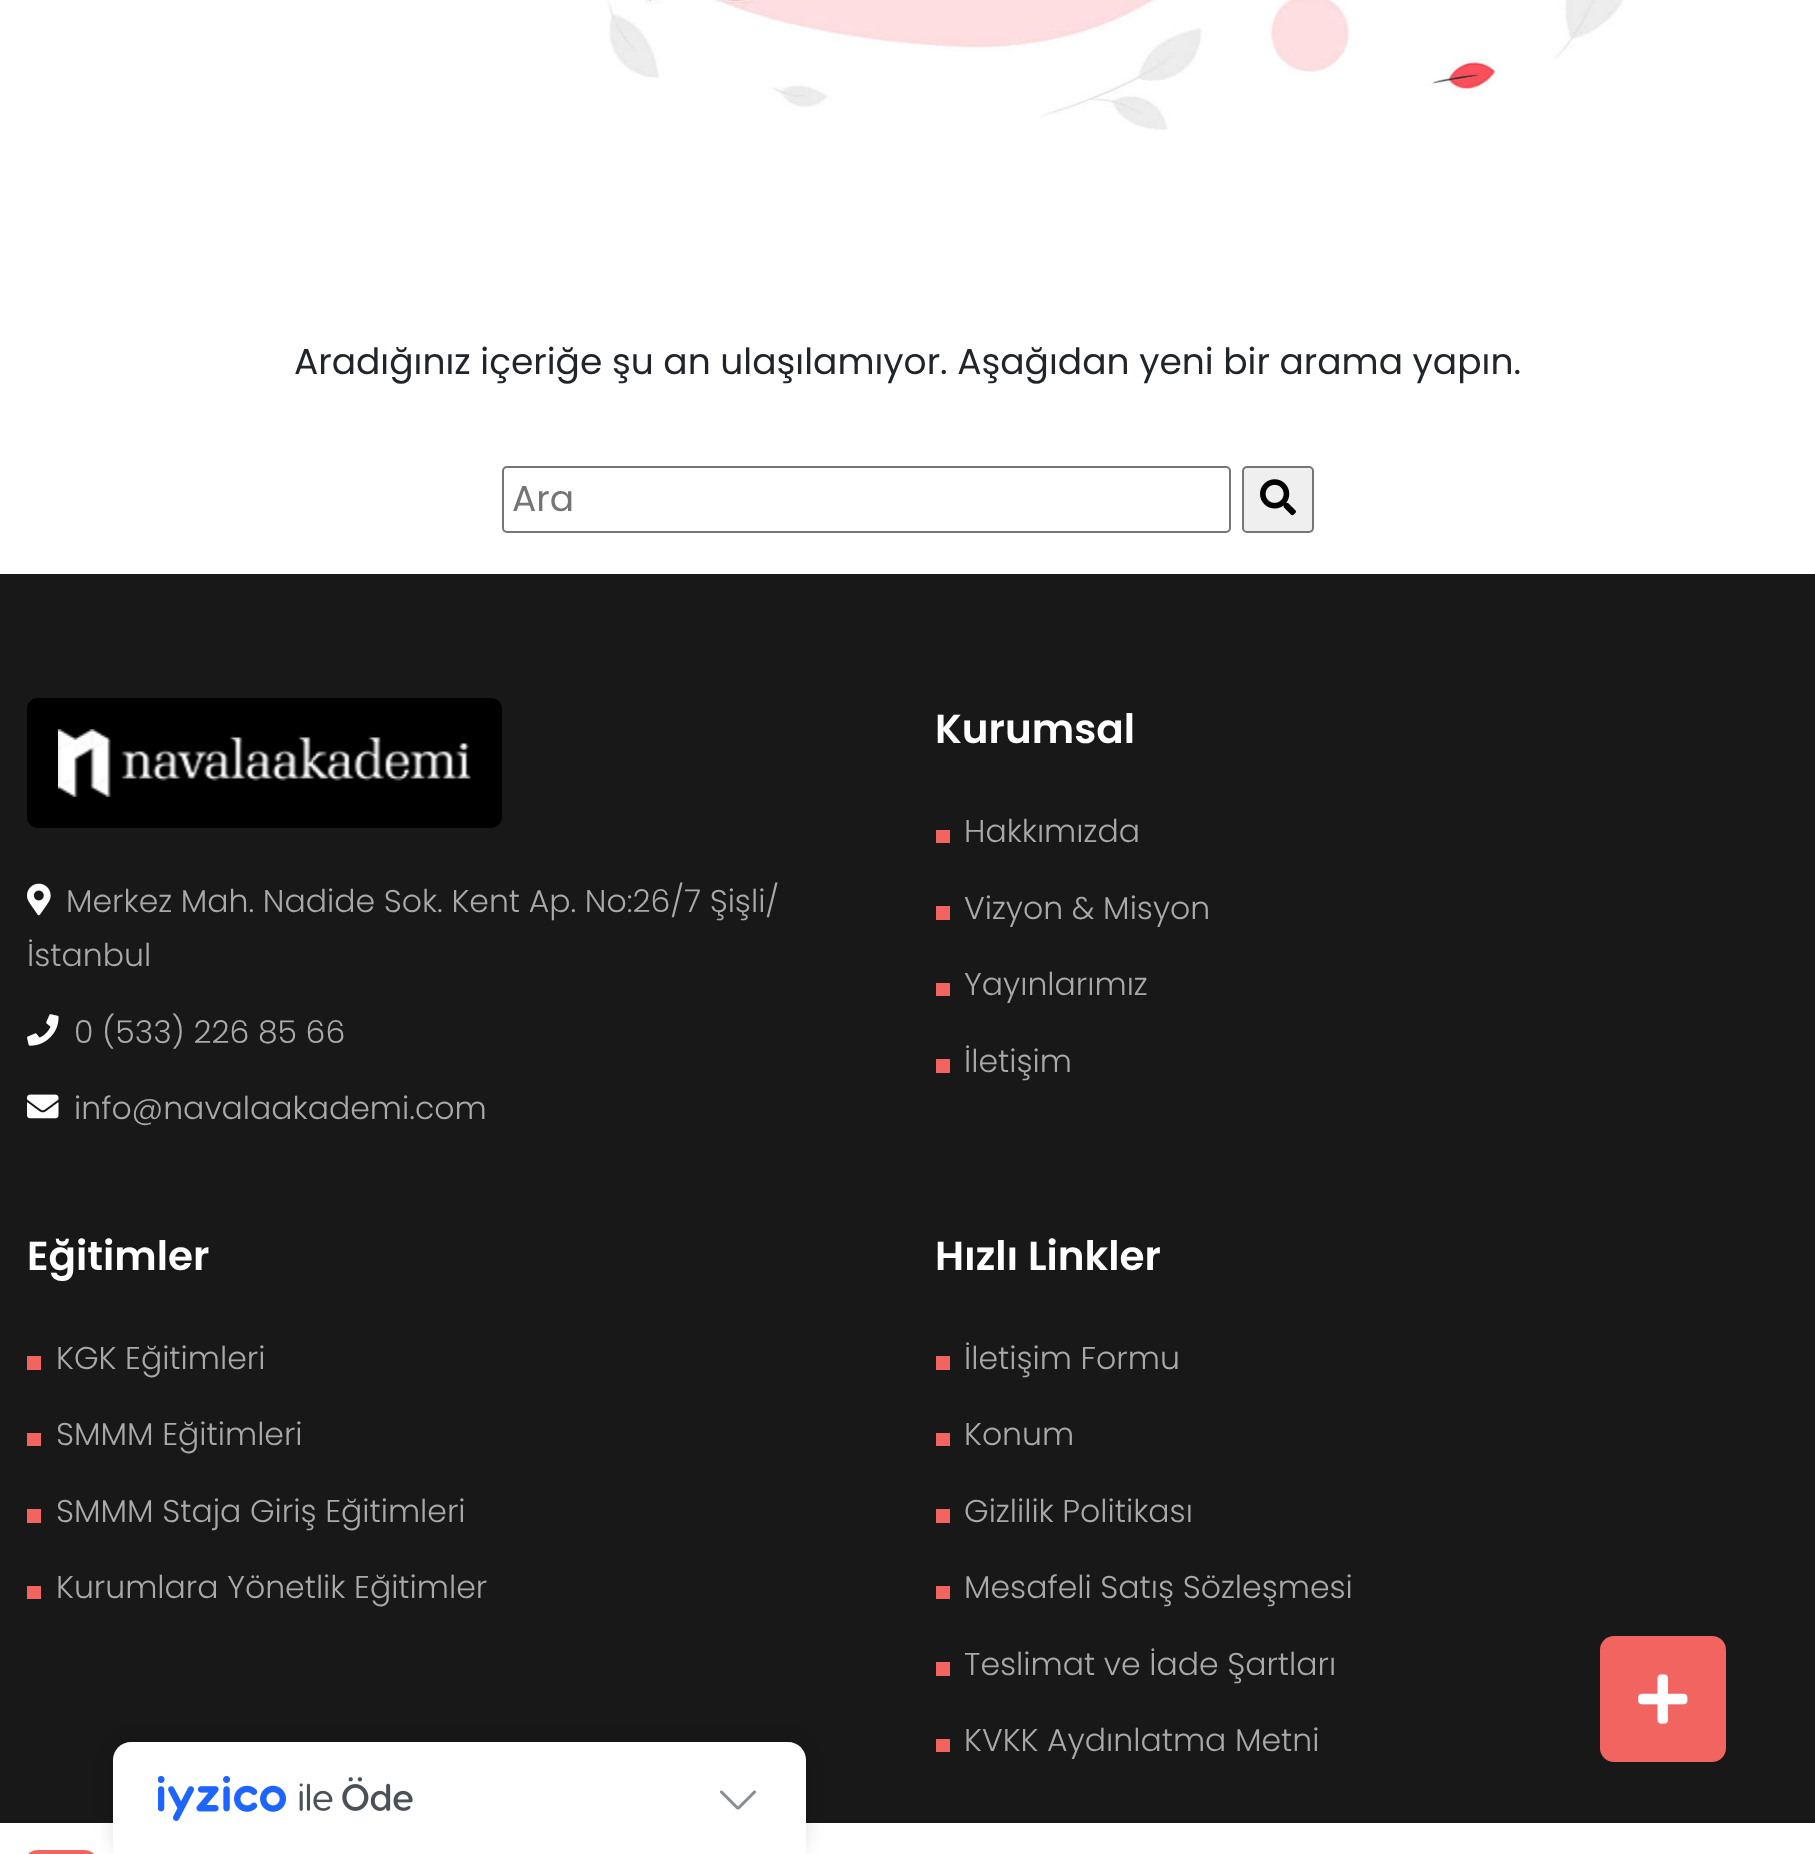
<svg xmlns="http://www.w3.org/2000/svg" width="1815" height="1854">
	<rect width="100%" height="100%" fill="#FFFFFF" />
	<image x="607" y="0" width="1017" height="130" href="assets/img1.png" />
	<text x="294" y="374" font-family="Poppins" font-size="36" fill="#212529">Aradığınız içeriğe şu an ulaşılamıyor. Aşağıdan yeni bir arama yapın.</text>
	<rect x="503" y="467" width="727" height="65" rx="4" fill="none" stroke="#767676" stroke-width="2" />
	<text x="512" y="511" font-family="Poppins" font-size="36" fill="#757575">Ara</text>
	<rect x="1243" y="467" width="70" height="65" rx="4" fill="#EFEFEF" stroke="#767676" stroke-width="2" />
	<image x="1260" y="479" width="36" height="37" href="assets/img2.png" />
	<rect x="0" y="574" width="1815" height="1249" fill="#191818" />
	<rect x="27" y="698" width="475" height="130" rx="11" fill="#000000" />
	<image x="58" y="729" width="413" height="68" href="assets/img3.png" />
	<image x="27" y="883" width="24" height="33" href="assets/img4.png" />
	<g font-family="Poppins" font-size="31.5" font-weight="300" fill="#A9A9A9">
		<text x="66" y="912">Merkez Mah. Nadide Sok. Kent Ap. No:26/7 Şişli/</text>
		<text x="27" y="966">İstanbul</text>
	</g>
	<image x="27" y="1014" width="32" height="32" href="assets/img5.png" />
	<text x="74" y="1043" font-family="Poppins" font-size="31.5" font-weight="300" fill="#A9A9A9">0 (533) 226 85 66</text>
	<image x="27" y="1094" width="32" height="25" href="assets/img6.png" />
	<text x="74" y="1119" font-family="Poppins" font-size="31.5" font-weight="300" fill="#A9A9A9">info@navalaakademi.com</text>
	<text x="935" y="743" font-family="Poppins" font-size="40.5" font-weight="600" fill="#FFFFFF">Kurumsal</text>
	<rect x="936" y="830" width="14" height="13" fill="#F26460" />
	<text x="964" y="842" font-family="Poppins" font-size="31.5" font-weight="300" fill="#A9A9A9">Hakkımızda</text>
	<rect x="936" y="906" width="14" height="14" fill="#F26460" />
	<text x="964" y="919" font-family="Poppins" font-size="31.5" font-weight="300" fill="#A9A9A9">Vizyon &amp; Misyon</text>
	<rect x="936" y="983" width="14" height="13" fill="#F26460" />
	<text x="964" y="995" font-family="Poppins" font-size="31.5" font-weight="300" fill="#A9A9A9">Yayınlarımız</text>
	<rect x="936" y="1059" width="14" height="14" fill="#F26460" />
	<text x="964" y="1072" font-family="Poppins" font-size="31.5" font-weight="300" fill="#A9A9A9">İletişim</text>
	<text x="27" y="1270" font-family="Poppins" font-size="40.5" font-weight="600" fill="#FFFFFF">Eğitimler</text>
	<rect x="27" y="1356" width="14" height="14" fill="#F26460" />
	<text x="56" y="1369" font-family="Poppins" font-size="31.5" font-weight="300" fill="#A9A9A9">KGK Eğitimleri</text>
	<rect x="27" y="1433" width="14" height="13" fill="#F26460" />
	<text x="56" y="1445" font-family="Poppins" font-size="31.5" font-weight="300" fill="#A9A9A9">SMMM Eğitimleri</text>
	<rect x="27" y="1509" width="14" height="14" fill="#F26460" />
	<text x="56" y="1522" font-family="Poppins" font-size="31.5" font-weight="300" fill="#A9A9A9">SMMM Staja Giriş Eğitimleri</text>
	<rect x="27" y="1586" width="14" height="13" fill="#F26460" />
	<text x="56" y="1598" font-family="Poppins" font-size="31.5" font-weight="300" fill="#A9A9A9">Kurumlara Yönetlik Eğitimler</text>
	<text x="935" y="1270" font-family="Poppins" font-size="40.5" font-weight="600" fill="#FFFFFF">Hızlı Linkler</text>
	<rect x="936" y="1356" width="14" height="14" fill="#F26460" />
	<text x="964" y="1369" font-family="Poppins" font-size="31.5" font-weight="300" fill="#A9A9A9">İletişim Formu</text>
	<rect x="936" y="1433" width="14" height="13" fill="#F26460" />
	<text x="964" y="1445" font-family="Poppins" font-size="31.5" font-weight="300" fill="#A9A9A9">Konum</text>
	<rect x="936" y="1509" width="14" height="14" fill="#F26460" />
	<text x="964" y="1522" font-family="Poppins" font-size="31.5" font-weight="300" fill="#A9A9A9">Gizlilik Politikası</text>
	<rect x="936" y="1586" width="14" height="13" fill="#F26460" />
	<text x="964" y="1598" font-family="Poppins" font-size="31.5" font-weight="300" fill="#A9A9A9">Mesafeli Satış Sözleşmesi</text>
	<rect x="936" y="1662" width="14" height="14" fill="#F26460" />
	<text x="964" y="1675" font-family="Poppins" font-size="31.5" font-weight="300" fill="#A9A9A9">Teslimat ve İade Şartları</text>
	<rect x="936" y="1739" width="14" height="13" fill="#F26460" />
	<text x="964" y="1751" font-family="Poppins" font-size="31.5" font-weight="300" fill="#A9A9A9">KVKK Aydınlatma Metni</text>
	<rect x="27" y="1850" width="68" height="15" rx="11" fill="#F26460" />
	<rect x="1600" y="1636" width="126" height="126" rx="14" fill="#F26460" />
	<image x="1638" y="1674" width="50" height="50" href="assets/img7.png" />
	<rect x="113" y="1742" width="693" height="112" rx="18" fill="#000000" fill-opacity="0.12" filter="blur(9px)" />
	<path d="M131 1742H788C798 1742 806 1750 806 1760V1854H113V1760C113 1750 121 1742 131 1742Z" fill="#FFFFFF" />
	<image x="158" y="1775" width="255" height="46" href="assets/img8.png" />
	<image x="720" y="1790" width="36" height="20" href="assets/img9.png" />
</svg>
